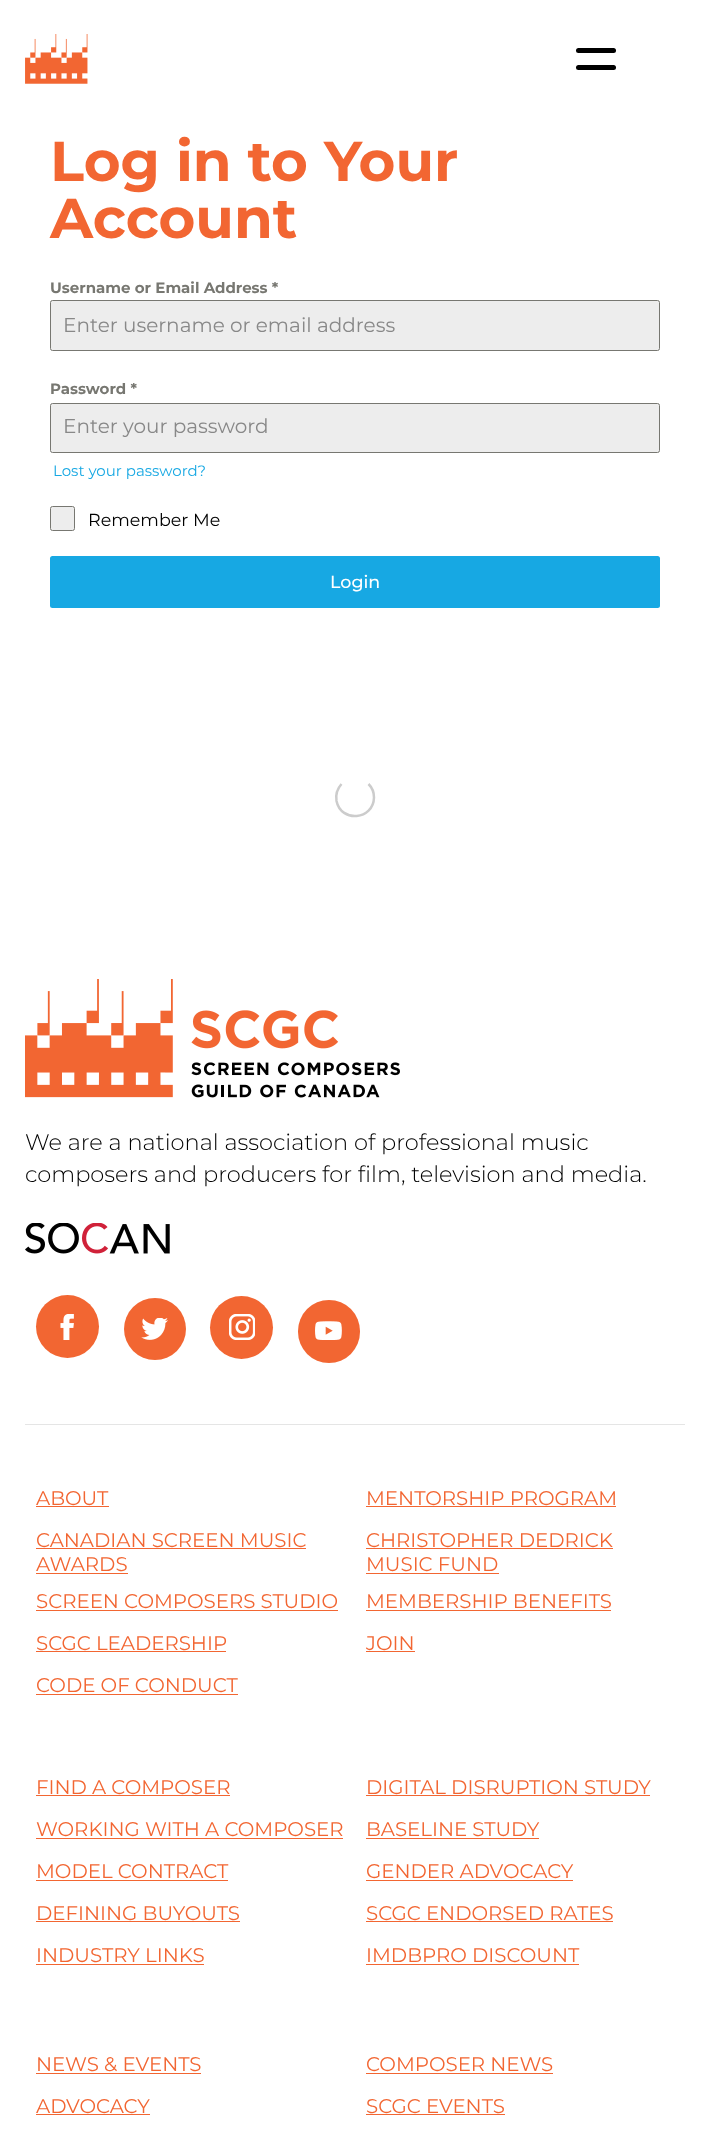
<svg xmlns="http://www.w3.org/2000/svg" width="710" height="2135">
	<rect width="100%" height="100%" fill="#FFFFFF" />
	<image x="25" y="34" width="63" height="50" href="assets/img1.png" />
	<rect x="576" y="48" width="40" height="5" rx="2.5" fill="#000000" />
	<rect x="576" y="65" width="40" height="5" rx="2.5" fill="#000000" />
	<g font-family="Montserrat" font-size="56.25" font-weight="100" fill="#F26632">
		<text x="50" y="181">Log in to Your</text>
		<text x="50" y="238">Account</text>
	</g>
	<text x="50" y="293" font-family="Montserrat" font-size="15" font-weight="100" fill="#777771">Username or Email Address *</text>
	<rect x="50.5" y="300.5" width="609" height="50" rx="2" fill="#EDEDED" stroke="#777771" />
	<text x="63" y="332" font-family="'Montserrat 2'" font-size="20" font-weight="100" fill="#888888">Enter username or email address</text>
	<text x="50" y="394" font-family="Montserrat" font-size="15" font-weight="100" fill="#777771">Password *</text>
	<rect x="50.5" y="403.5" width="609" height="49" rx="2" fill="#EDEDED" stroke="#777771" />
	<text x="63" y="433" font-family="'Montserrat 2'" font-size="20" font-weight="100" fill="#888888">Enter your password</text>
	<text x="53" y="476" font-family="'Montserrat 2'" font-size="15" font-weight="100" fill="#17A8E3">Lost your password?</text>
	<rect x="50.5" y="506.5" width="24" height="24" rx="2" fill="#EDEDED" stroke="#777771" />
	<text x="88" y="526" font-family="'Montserrat 2'" font-size="17.5" font-weight="100" fill="#000000">Remember Me</text>
	<rect x="50" y="556" width="610" height="52" rx="2.5" fill="#17A8E3" />
	<text x="330" y="588" font-family="Montserrat" font-size="17.5" font-weight="500" fill="#FFFFFF">Login</text>
	<path d="M368.5 784C372 787.5 374 792.5 374 797.5C373.5 820 341 823 336.5 801C335.5 795 337.5 788.5 341.5 784" fill="none" stroke="#CCCCCC" stroke-width="2.5" />
	<image x="25" y="979" width="375" height="119" href="assets/img2.png" />
	<g font-family="Montserrat" font-size="22.5" font-weight="300" fill="#000000">
		<text x="25" y="1150">We are a national association of professional music</text>
		<text x="25" y="1182">composers and producers for film, television and media.</text>
	</g>
	<image x="25" y="1223" width="145" height="31" href="assets/img3.png" />
	<rect x="25" y="1424" width="660" height="1" fill="#E5E5E5" />
	<circle cx="67.5" cy="1326.5" r="31.5" fill="#F26632" />
	<image x="60" y="1314" width="14" height="26" href="assets/img4.png" />
	<circle cx="155" cy="1329" r="31" fill="#F26632" />
	<image x="141" y="1318" width="27" height="22" href="assets/img5.png" />
	<circle cx="241.5" cy="1327.5" r="31.5" fill="#F26632" />
	<image x="229" y="1314" width="26" height="26" href="assets/img6.png" />
	<rect x="298" y="1300" width="62" height="63" rx="31" fill="#F26632" />
	<image x="315" y="1321" width="27" height="19" href="assets/img7.png" />
	<text x="36" y="1505" font-family="'Montserrat 2'" font-size="19.75" font-weight="100" fill="#F26632">ABOUT</text>
	<rect x="36" y="1506" width="73" height="1" fill="#F26632" />
	<text x="366" y="1505" font-family="'Montserrat 2'" font-size="19.75" font-weight="100" fill="#F26632">MENTORSHIP PROGRAM</text>
	<rect x="366" y="1506" width="250" height="1" fill="#F26632" />
	<text x="36" y="1547" font-family="'Montserrat 2'" font-size="19.75" font-weight="100" fill="#F26632">CANADIAN SCREEN MUSIC</text>
	<rect x="36" y="1548" width="270" height="1" fill="#F26632" />
	<text x="36" y="1571" font-family="'Montserrat 2'" font-size="19.75" font-weight="100" fill="#F26632">AWARDS</text>
	<rect x="36" y="1573" width="92" height="1" fill="#F26632" />
	<text x="366" y="1547" font-family="'Montserrat 2'" font-size="19.75" font-weight="100" fill="#F26632">CHRISTOPHER DEDRICK</text>
	<rect x="366" y="1548" width="247" height="1" fill="#F26632" />
	<text x="366" y="1571" font-family="'Montserrat 2'" font-size="19.75" font-weight="100" fill="#F26632">MUSIC FUND</text>
	<rect x="366" y="1573" width="133" height="1" fill="#F26632" />
	<text x="36" y="1608" font-family="'Montserrat 2'" font-size="19.75" font-weight="100" fill="#F26632">SCREEN COMPOSERS STUDIO</text>
	<rect x="36" y="1610" width="302" height="1" fill="#F26632" />
	<text x="366" y="1608" font-family="'Montserrat 2'" font-size="19.75" font-weight="100" fill="#F26632">MEMBERSHIP BENEFITS</text>
	<rect x="366" y="1610" width="245" height="1" fill="#F26632" />
	<text x="36" y="1650" font-family="'Montserrat 2'" font-size="19.75" font-weight="100" fill="#F26632">SCGC LEADERSHIP</text>
	<rect x="36" y="1651" width="190" height="1" fill="#F26632" />
	<text x="366" y="1650" font-family="'Montserrat 2'" font-size="19.75" font-weight="100" fill="#F26632">JOIN</text>
	<rect x="366" y="1651" width="49" height="1" fill="#F26632" />
	<text x="36" y="1692" font-family="'Montserrat 2'" font-size="19.75" font-weight="100" fill="#F26632">CODE OF CONDUCT</text>
	<rect x="36" y="1694" width="202" height="1" fill="#F26632" />
	<text x="36" y="1794" font-family="'Montserrat 2'" font-size="19.75" font-weight="100" fill="#F26632">FIND A COMPOSER</text>
	<rect x="36" y="1795" width="194" height="1" fill="#F26632" />
	<text x="366" y="1794" font-family="'Montserrat 2'" font-size="19.75" font-weight="100" fill="#F26632">DIGITAL DISRUPTION STUDY</text>
	<rect x="366" y="1795" width="284" height="1" fill="#F26632" />
	<text x="36" y="1836" font-family="'Montserrat 2'" font-size="19.75" font-weight="100" fill="#F26632">WORKING WITH A COMPOSER</text>
	<rect x="36" y="1838" width="307" height="1" fill="#F26632" />
	<text x="366" y="1836" font-family="'Montserrat 2'" font-size="19.75" font-weight="100" fill="#F26632">BASELINE STUDY</text>
	<rect x="366" y="1838" width="173" height="1" fill="#F26632" />
	<text x="36" y="1878" font-family="'Montserrat 2'" font-size="19.75" font-weight="100" fill="#F26632">MODEL CONTRACT</text>
	<rect x="36" y="1880" width="192" height="1" fill="#F26632" />
	<text x="366" y="1878" font-family="'Montserrat 2'" font-size="19.75" font-weight="100" fill="#F26632">GENDER ADVOCACY</text>
	<rect x="366" y="1880" width="207" height="1" fill="#F26632" />
	<text x="36" y="1920" font-family="'Montserrat 2'" font-size="19.75" font-weight="100" fill="#F26632">DEFINING BUYOUTS</text>
	<rect x="36" y="1921" width="204" height="1" fill="#F26632" />
	<text x="366" y="1920" font-family="'Montserrat 2'" font-size="19.75" font-weight="100" fill="#F26632">SCGC ENDORSED RATES</text>
	<rect x="366" y="1921" width="247" height="1" fill="#F26632" />
	<text x="36" y="1962" font-family="'Montserrat 2'" font-size="19.75" font-weight="100" fill="#F26632">INDUSTRY LINKS</text>
	<rect x="36" y="1964" width="168" height="1" fill="#F26632" />
	<text x="366" y="1962" font-family="'Montserrat 2'" font-size="19.75" font-weight="100" fill="#F26632">IMDBPRO DISCOUNT</text>
	<rect x="366" y="1964" width="213" height="1" fill="#F26632" />
	<text x="36" y="2071" font-family="'Montserrat 2'" font-size="19.75" font-weight="100" fill="#F26632">NEWS &amp; EVENTS</text>
	<rect x="36" y="2073" width="165" height="1" fill="#F26632" />
	<text x="366" y="2071" font-family="'Montserrat 2'" font-size="19.75" font-weight="100" fill="#F26632">COMPOSER NEWS</text>
	<rect x="366" y="2073" width="187" height="1" fill="#F26632" />
	<text x="36" y="2113" font-family="'Montserrat 2'" font-size="19.75" font-weight="100" fill="#F26632">ADVOCACY</text>
	<rect x="36" y="2114" width="114" height="1" fill="#F26632" />
	<text x="366" y="2113" font-family="'Montserrat 2'" font-size="19.75" font-weight="100" fill="#F26632">SCGC EVENTS</text>
	<rect x="366" y="2114" width="139" height="1" fill="#F26632" />
</svg>
